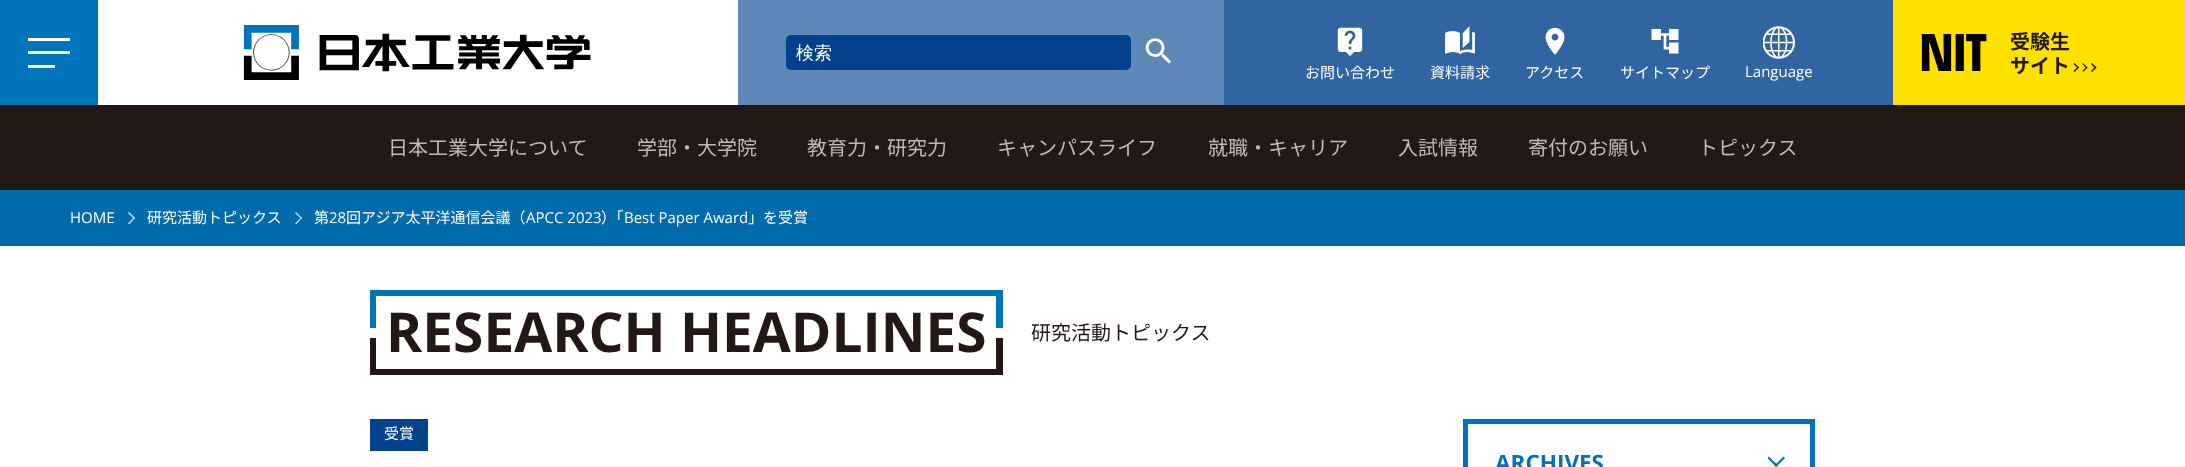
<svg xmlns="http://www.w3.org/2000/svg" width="2185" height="467">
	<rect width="100%" height="100%" fill="#FFFFFF" />
	<rect x="0" y="0" width="98" height="105" fill="#0074BB" />
	<rect x="28" y="38" width="42" height="3" fill="#FFFFFF" />
	<rect x="28" y="51" width="42" height="3" fill="#FFFFFF" />
	<rect x="28" y="65" width="27" height="3" fill="#FFFFFF" />
	<image x="243" y="25" width="348" height="55" href="assets/img1.png" />
	<rect x="738" y="0" width="486" height="105" fill="#5E88B8" />
	<rect x="786" y="35" width="345" height="35" rx="5" fill="#02428C" />
	<text x="796" y="59" font-family="WenQuanYi Zen Hei" font-size="18" font-weight="500" fill="#FFFFFF">検索</text>
	<image x="1145" y="38" width="26" height="26" href="assets/img2.png" />
	<rect x="1893" y="0" width="292" height="105" fill="#FFE100" />
	<image x="1921" y="34" width="66" height="37" href="assets/img3.png" />
	<g font-family="Noto Sans JP" font-size="20" font-weight="700" fill="#231815">
		<text x="2010" y="49">受験生</text>
		<text x="2010" y="73">サイト</text>
	</g>
	<path d="M2074.5 63L2079 67.5L2078 68.5L2073.5 64Z" fill="#231815" />
	<path d="M2078 66.5L2079 67.5L2074.5 72L2073.5 71ZM2083 63L2087.5 67.5L2086.5 68.5L2082.5 64Z" fill="#231815" />
	<path d="M2086.5 66.5L2087.5 67.5L2083 72L2082.5 71ZM2092 63L2096.5 67.5L2095.5 68.5L2091 64Z" fill="#231815" />
	<path d="M2095.5 66.5L2096.5 67.5L2092 72L2091 71Z" fill="#231815" />
	<rect x="1224" y="0" width="669" height="105" fill="#3065A2" />
	<image x="1337" y="27" width="26" height="29" href="assets/img4.png" />
	<text x="1305" y="78" font-family="Noto Sans JP" font-size="15" fill="#FFFFFF">お問い合わせ</text>
	<image x="1445" y="26" width="30" height="29" href="assets/img5.png" />
	<text x="1430" y="78" font-family="Noto Sans JP" font-size="15" fill="#FFFFFF">資料請求</text>
	<image x="1545" y="27" width="20" height="28" href="assets/img6.png" />
	<text x="1525" y="78" font-family="Noto Sans JP" font-size="15" fill="#FFFFFF">アクセス</text>
	<image x="1651" y="29" width="28" height="25" href="assets/img7.png" />
	<text x="1620" y="78" font-family="Noto Sans JP" font-size="15" fill="#FFFFFF">サイトマップ</text>
	<image x="1763" y="26" width="32" height="33" href="assets/img8.png" />
	<text x="1745" y="77" font-family="Open Sans" font-size="15" fill="#FFFFFF">Language</text>
	<rect x="0" y="105" width="2185" height="85" fill="#221917" />
	<g font-family="Noto Sans JP" font-size="20" fill="#BDBAB9">
		<text x="388" y="155">日本工業大学について</text>
		<text x="637" y="155">学部・大学院</text>
		<text x="807" y="155">教育力・研究力</text>
		<text x="997" y="155">キャンパスライフ</text>
		<text x="1208" y="155">就職・キャリア</text>
		<text x="1398" y="155">入試情報</text>
		<text x="1528" y="155">寄付のお願い</text>
		<text x="1698" y="155">トピックス</text>
	</g>
	<rect x="0" y="190" width="2185" height="56" fill="#036BAB" />
	<text x="70" y="223" font-family="Open Sans" font-size="15" fill="#FFFFFF">HOME</text>
	<path d="M129 212L135 218L134 219L128 213Z" fill="#CDE1EE" />
	<path d="M134 217L135 218L129 224.5L128 223.5Z" fill="#CDE1EE" />
	<text x="147" y="223" font-family="Noto Sans JP" font-size="15" fill="#FFFFFF">研究活動トピックス</text>
	<path d="M296 212L302 218L301.5 219L295 213Z" fill="#CDE1EE" />
	<path d="M301.5 217L302 218L296 224.5L295 223.5Z" fill="#CDE1EE" />
	<text x="314" y="223" font-family="Noto Sans JP" font-size="15" fill="#FFFFFF">第</text>
	<text x="329" y="223" font-family="Open Sans" font-size="15" fill="#FFFFFF">28</text>
	<text x="346" y="223" font-family="Noto Sans JP" font-size="15" fill="#FFFFFF">回アジア太平洋通信会議（</text>
	<text x="526" y="223" font-family="Open Sans" font-size="15" fill="#FFFFFF">APCC 2023</text>
	<text x="601" y="223" font-family="Noto Sans JP" font-size="15" fill="#FFFFFF">）「</text>
	<text x="624" y="223" font-family="Open Sans" font-size="15" fill="#FFFFFF">Best Paper Award</text>
	<text x="748" y="223" font-family="Noto Sans JP" font-size="15" fill="#FFFFFF">」を受賞</text>
	<rect x="370" y="290" width="633" height="6" fill="#0074BB" />
	<rect x="996" y="290" width="7" height="38" fill="#0074BB" />
	<rect x="370" y="290" width="6" height="38" fill="#0074BB" />
	<text x="386" y="352" font-family="Open Sans" font-size="55" font-weight="700" fill="#231815">RESEARCH HEADLINES</text>
	<rect x="996" y="338" width="7" height="37" fill="#231815" />
	<rect x="370" y="369" width="633" height="6" fill="#231815" />
	<rect x="370" y="338" width="6" height="37" fill="#231815" />
	<text x="1031" y="340" font-family="Noto Sans JP" font-size="20" fill="#231815">研究活動トピックス</text>
	<rect x="370" y="419" width="58" height="32" fill="#02428C" />
	<text x="384" y="439" font-family="Noto Sans JP" font-size="15" fill="#FFFFFF">受賞</text>
	<rect x="1465.5" y="421.5" width="347" height="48" fill="none" stroke="#0074BB" stroke-width="5" />
	<text x="1495" y="471" font-family="Open Sans" font-size="22.5" font-weight="700" fill="#0074BB">ARCHIVES</text>
	<path d="M1785 458L1776 467L1774.5 465.5L1783.5 456.5Z" fill="#0074BB" />
	<path d="M1778 465.5L1776 467L1767.5 458L1769 456.5Z" fill="#0074BB" />
</svg>
